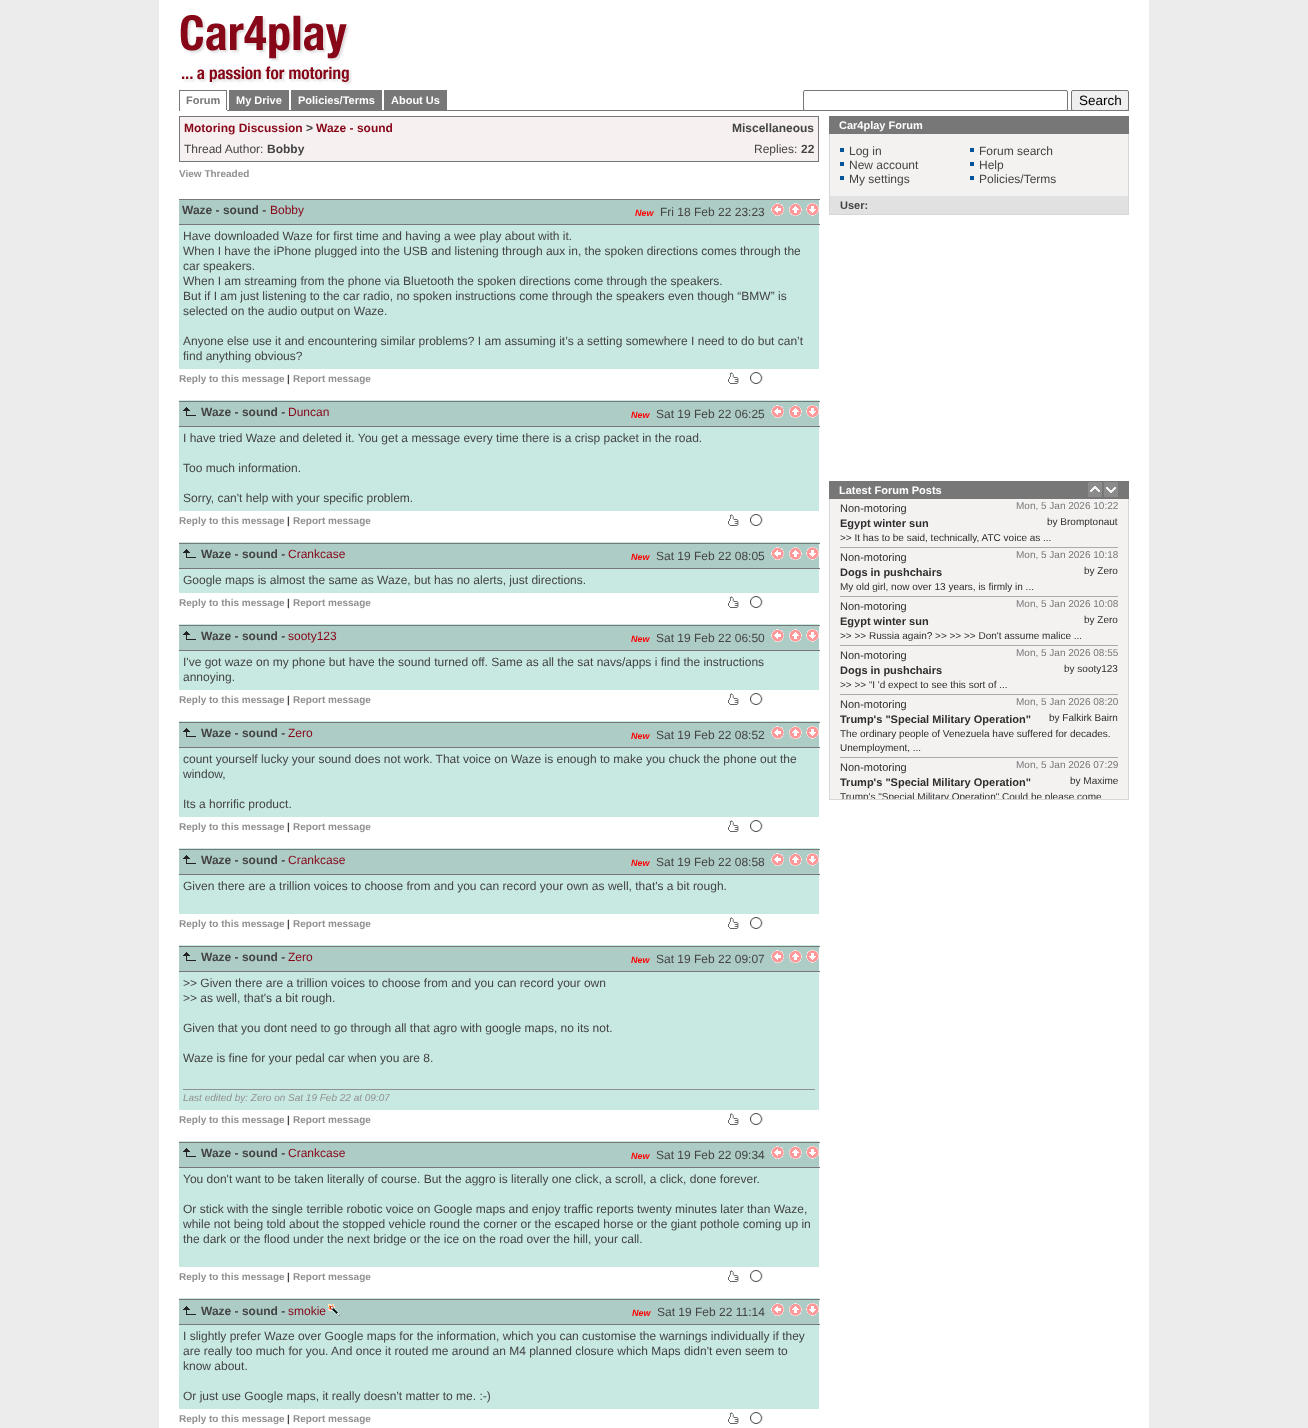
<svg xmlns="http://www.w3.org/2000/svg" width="1308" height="1428">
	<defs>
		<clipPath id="clip1"><rect x="830" y="499" width="298" height="300" /></clipPath>
	</defs>
	<rect width="100%" height="100%" fill="#ECECEC" />
	<rect x="159" y="0" width="990" height="1428" fill="#FFFFFF" />
	<image x="180" y="15" width="172" height="70" href="assets/img1.png" />
	<rect x="227" y="110" width="902" height="1" fill="#777777" />
	<rect x="179" y="90" width="48" height="1" fill="#777777" />
	<rect x="226" y="90" width="1" height="21" fill="#777777" />
	<rect x="226" y="110" width="1" height="1" fill="#FFFFFF" />
	<rect x="179" y="90" width="1" height="21" fill="#777777" />
	<text x="186" y="104" font-family="Liberation Sans" font-size="11" font-weight="700" fill="#777777">Forum</text>
	<rect x="229" y="90" width="60" height="20" fill="#777777" />
	<text x="236" y="104" font-family="Liberation Sans" font-size="11" font-weight="700" fill="#FFFFFF">My Drive</text>
	<rect x="291" y="90" width="91" height="20" fill="#777777" />
	<text x="298" y="104" font-family="Liberation Sans" font-size="11" font-weight="700" fill="#FFFFFF">Policies/Terms</text>
	<rect x="384" y="90" width="63" height="20" fill="#777777" />
	<text x="391" y="104" font-family="Liberation Sans" font-size="11" font-weight="700" fill="#FFFFFF">About Us</text>
	<rect x="803.5" y="90.5" width="264" height="20" rx="1.5" fill="#FFFFFF" stroke="#767676" />
	<rect x="1071.5" y="90.5" width="57" height="20" rx="1.5" fill="#EFEFEF" stroke="#767676" />
	<text x="1079" y="105" font-family="Liberation Sans" font-size="13.5" fill="#000000">Search</text>
	<rect x="179.5" y="116.5" width="639" height="45" fill="#F7F0F1" stroke="#777777" />
	<text x="184" y="132" font-family="Liberation Sans" font-size="12" font-weight="700" fill="#870618">Motoring Discussion</text>
	<text x="306" y="132" font-family="Liberation Sans" font-size="12" font-weight="700" fill="#444444">&gt;</text>
	<text x="316" y="132" font-family="Liberation Sans" font-size="12" font-weight="700" fill="#870618">Waze - sound</text>
	<text x="732" y="132" font-family="Liberation Sans" font-size="12" font-weight="700" fill="#444444">Miscellaneous</text>
	<text x="184" y="153" font-family="Liberation Sans" font-size="12" fill="#444444">Thread Author:</text>
	<text x="267" y="153" font-family="Liberation Sans" font-size="12" font-weight="700" fill="#444444">Bobby</text>
	<text x="754" y="153" font-family="Liberation Sans" font-size="12" fill="#444444">Replies:</text>
	<text x="801" y="153" font-family="Liberation Sans" font-size="12" font-weight="700" fill="#444444">22</text>
	<text x="179" y="177" font-family="Liberation Sans" font-size="10" font-weight="700" fill="#919191">View Threaded</text>
	<rect x="179" y="200" width="640" height="24" fill="#ADCCC6" />
	<rect x="179" y="199" width="641" height="1" fill="#777777" />
	<rect x="179" y="224" width="641" height="1" fill="#777777" />
	<text x="182" y="214" font-family="Liberation Sans" font-size="12" font-weight="700" fill="#444444">Waze - sound -</text>
	<text x="270" y="214" font-family="Liberation Sans" font-size="12" fill="#870618">Bobby</text>
	<text x="635" y="216" font-family="Liberation Sans" font-size="9" font-weight="700" font-style="italic" fill="#FF0000">New</text>
	<text x="660" y="216" font-family="Liberation Sans" font-size="12" fill="#444444">Fri 18 Feb 22 23:23</text>
	<image x="771" y="203" width="13" height="13" href="assets/img2.png" />
	<image x="789" y="203" width="13" height="13" href="assets/img3.png" />
	<image x="806" y="203" width="13" height="13" href="assets/img4.png" />
	<rect x="179" y="225" width="640" height="176" fill="#C8E8E2" />
	<g font-family="Liberation Sans" font-size="12" fill="#444444">
		<text x="183" y="240">Have downloaded Waze for first time and having a wee play about with it.</text>
		<text x="183" y="255">When I have the iPhone plugged into the USB and listening through aux in, the spoken directions comes through the</text>
		<text x="183" y="270">car speakers.</text>
		<text x="183" y="285">When I am streaming from the phone via Bluetooth the spoken directions come through the speakers.</text>
		<text x="183" y="300">But if I am just listening to the car radio, no spoken instructions come through the speakers even though “BMW” is</text>
		<text x="183" y="315">selected on the audio output on Waze.</text>
		<text x="183" y="345">Anyone else use it and encountering similar problems? I am assuming it’s a setting somewhere I need to do but can’t</text>
		<text x="183" y="360">find anything obvious?</text>
	</g>
	<rect x="179" y="369" width="640" height="31" fill="#FFFFFF" />
	<text x="179" y="382" font-family="Liberation Sans" font-size="10" font-weight="700" fill="#919191">Reply to this message</text>
	<text x="287" y="382" font-family="Liberation Sans" font-size="10" font-weight="700" fill="#444444">|</text>
	<text x="293" y="382" font-family="Liberation Sans" font-size="10" font-weight="700" fill="#919191">Report message</text>
	<image x="728" y="372" width="11" height="12" href="assets/img5.png" />
	<image x="750" y="372" width="13" height="12" href="assets/img6.png" />
	<rect x="179" y="402" width="640" height="24" fill="#ADCCC6" />
	<rect x="179" y="401" width="641" height="1" fill="#777777" />
	<rect x="179" y="426" width="641" height="1" fill="#777777" />
	<image x="183" y="407" width="13" height="9" href="assets/img7.png" />
	<text x="201" y="416" font-family="Liberation Sans" font-size="12" font-weight="700" fill="#444444">Waze - sound -</text>
	<text x="288" y="416" font-family="Liberation Sans" font-size="12" fill="#870618">Duncan</text>
	<text x="631" y="418" font-family="Liberation Sans" font-size="9" font-weight="700" font-style="italic" fill="#FF0000">New</text>
	<text x="656" y="418" font-family="Liberation Sans" font-size="12" fill="#444444">Sat 19 Feb 22 06:25</text>
	<image x="771" y="405" width="13" height="13" href="assets/img2.png" />
	<image x="789" y="405" width="13" height="13" href="assets/img3.png" />
	<image x="806" y="405" width="13" height="13" href="assets/img4.png" />
	<rect x="179" y="427" width="640" height="116" fill="#C8E8E2" />
	<g font-family="Liberation Sans" font-size="12" fill="#444444">
		<text x="183" y="442">I have tried Waze and deleted it. You get a message every time there is a crisp packet in the road.</text>
		<text x="183" y="472">Too much information.</text>
		<text x="183" y="502">Sorry, can't help with your specific problem.</text>
	</g>
	<rect x="179" y="511" width="640" height="31" fill="#FFFFFF" />
	<text x="179" y="524" font-family="Liberation Sans" font-size="10" font-weight="700" fill="#919191">Reply to this message</text>
	<text x="287" y="524" font-family="Liberation Sans" font-size="10" font-weight="700" fill="#444444">|</text>
	<text x="293" y="524" font-family="Liberation Sans" font-size="10" font-weight="700" fill="#919191">Report message</text>
	<image x="728" y="514" width="11" height="12" href="assets/img5.png" />
	<image x="750" y="514" width="13" height="12" href="assets/img6.png" />
	<rect x="179" y="544" width="640" height="24" fill="#ADCCC6" />
	<rect x="179" y="543" width="641" height="1" fill="#777777" />
	<rect x="179" y="568" width="641" height="1" fill="#777777" />
	<image x="183" y="549" width="13" height="9" href="assets/img7.png" />
	<text x="201" y="558" font-family="Liberation Sans" font-size="12" font-weight="700" fill="#444444">Waze - sound -</text>
	<text x="288" y="558" font-family="Liberation Sans" font-size="12" fill="#870618">Crankcase</text>
	<text x="631" y="560" font-family="Liberation Sans" font-size="9" font-weight="700" font-style="italic" fill="#FF0000">New</text>
	<text x="656" y="560" font-family="Liberation Sans" font-size="12" fill="#444444">Sat 19 Feb 22 08:05</text>
	<image x="771" y="547" width="13" height="13" href="assets/img2.png" />
	<image x="789" y="547" width="13" height="13" href="assets/img3.png" />
	<image x="806" y="547" width="13" height="13" href="assets/img4.png" />
	<rect x="179" y="569" width="640" height="56" fill="#C8E8E2" />
	<text x="183" y="584" font-family="Liberation Sans" font-size="12" fill="#444444">Google maps is almost the same as Waze, but has no alerts, just directions.</text>
	<rect x="179" y="593" width="640" height="31" fill="#FFFFFF" />
	<text x="179" y="606" font-family="Liberation Sans" font-size="10" font-weight="700" fill="#919191">Reply to this message</text>
	<text x="287" y="606" font-family="Liberation Sans" font-size="10" font-weight="700" fill="#444444">|</text>
	<text x="293" y="606" font-family="Liberation Sans" font-size="10" font-weight="700" fill="#919191">Report message</text>
	<image x="728" y="596" width="11" height="12" href="assets/img5.png" />
	<image x="750" y="596" width="13" height="12" href="assets/img6.png" />
	<rect x="179" y="626" width="640" height="24" fill="#ADCCC6" />
	<rect x="179" y="625" width="641" height="1" fill="#777777" />
	<rect x="179" y="650" width="641" height="1" fill="#777777" />
	<image x="183" y="631" width="13" height="9" href="assets/img7.png" />
	<text x="201" y="640" font-family="Liberation Sans" font-size="12" font-weight="700" fill="#444444">Waze - sound -</text>
	<text x="288" y="640" font-family="Liberation Sans" font-size="12" fill="#870618">sooty123</text>
	<text x="631" y="642" font-family="Liberation Sans" font-size="9" font-weight="700" font-style="italic" fill="#FF0000">New</text>
	<text x="656" y="642" font-family="Liberation Sans" font-size="12" fill="#444444">Sat 19 Feb 22 06:50</text>
	<image x="771" y="629" width="13" height="13" href="assets/img2.png" />
	<image x="789" y="629" width="13" height="13" href="assets/img3.png" />
	<image x="806" y="629" width="13" height="13" href="assets/img4.png" />
	<rect x="179" y="651" width="640" height="71" fill="#C8E8E2" />
	<g font-family="Liberation Sans" font-size="12" fill="#444444">
		<text x="183" y="666">I've got waze on my phone but have the sound turned off. Same as all the sat navs/apps i find the instructions</text>
		<text x="183" y="681">annoying.</text>
	</g>
	<rect x="179" y="690" width="640" height="31" fill="#FFFFFF" />
	<text x="179" y="703" font-family="Liberation Sans" font-size="10" font-weight="700" fill="#919191">Reply to this message</text>
	<text x="287" y="703" font-family="Liberation Sans" font-size="10" font-weight="700" fill="#444444">|</text>
	<text x="293" y="703" font-family="Liberation Sans" font-size="10" font-weight="700" fill="#919191">Report message</text>
	<image x="728" y="693" width="11" height="12" href="assets/img5.png" />
	<image x="750" y="693" width="13" height="12" href="assets/img6.png" />
	<rect x="179" y="723" width="640" height="24" fill="#ADCCC6" />
	<rect x="179" y="722" width="641" height="1" fill="#777777" />
	<rect x="179" y="747" width="641" height="1" fill="#777777" />
	<image x="183" y="728" width="13" height="9" href="assets/img7.png" />
	<text x="201" y="737" font-family="Liberation Sans" font-size="12" font-weight="700" fill="#444444">Waze - sound -</text>
	<text x="288" y="737" font-family="Liberation Sans" font-size="12" fill="#870618">Zero</text>
	<text x="631" y="739" font-family="Liberation Sans" font-size="9" font-weight="700" font-style="italic" fill="#FF0000">New</text>
	<text x="656" y="739" font-family="Liberation Sans" font-size="12" fill="#444444">Sat 19 Feb 22 08:52</text>
	<image x="771" y="726" width="13" height="13" href="assets/img2.png" />
	<image x="789" y="726" width="13" height="13" href="assets/img3.png" />
	<image x="806" y="726" width="13" height="13" href="assets/img4.png" />
	<rect x="179" y="748" width="640" height="101" fill="#C8E8E2" />
	<g font-family="Liberation Sans" font-size="12" fill="#444444">
		<text x="183" y="763">count yourself lucky your sound does not work. That voice on Waze is enough to make you chuck the phone out the</text>
		<text x="183" y="778">window,</text>
		<text x="183" y="808">Its a horrific product.</text>
	</g>
	<rect x="179" y="817" width="640" height="31" fill="#FFFFFF" />
	<text x="179" y="830" font-family="Liberation Sans" font-size="10" font-weight="700" fill="#919191">Reply to this message</text>
	<text x="287" y="830" font-family="Liberation Sans" font-size="10" font-weight="700" fill="#444444">|</text>
	<text x="293" y="830" font-family="Liberation Sans" font-size="10" font-weight="700" fill="#919191">Report message</text>
	<image x="728" y="820" width="11" height="12" href="assets/img5.png" />
	<image x="750" y="820" width="13" height="12" href="assets/img6.png" />
	<rect x="179" y="850" width="640" height="24" fill="#ADCCC6" />
	<rect x="179" y="849" width="641" height="1" fill="#777777" />
	<rect x="179" y="874" width="641" height="1" fill="#777777" />
	<image x="183" y="855" width="13" height="9" href="assets/img7.png" />
	<text x="201" y="864" font-family="Liberation Sans" font-size="12" font-weight="700" fill="#444444">Waze - sound -</text>
	<text x="288" y="864" font-family="Liberation Sans" font-size="12" fill="#870618">Crankcase</text>
	<text x="631" y="866" font-family="Liberation Sans" font-size="9" font-weight="700" font-style="italic" fill="#FF0000">New</text>
	<text x="656" y="866" font-family="Liberation Sans" font-size="12" fill="#444444">Sat 19 Feb 22 08:58</text>
	<image x="771" y="853" width="13" height="13" href="assets/img2.png" />
	<image x="789" y="853" width="13" height="13" href="assets/img3.png" />
	<image x="806" y="853" width="13" height="13" href="assets/img4.png" />
	<rect x="179" y="875" width="640" height="71" fill="#C8E8E2" />
	<text x="183" y="890" font-family="Liberation Sans" font-size="12" fill="#444444">Given there are a trillion voices to choose from and you can record your own as well, that's a bit rough.</text>
	<rect x="179" y="914" width="640" height="31" fill="#FFFFFF" />
	<text x="179" y="927" font-family="Liberation Sans" font-size="10" font-weight="700" fill="#919191">Reply to this message</text>
	<text x="287" y="927" font-family="Liberation Sans" font-size="10" font-weight="700" fill="#444444">|</text>
	<text x="293" y="927" font-family="Liberation Sans" font-size="10" font-weight="700" fill="#919191">Report message</text>
	<image x="728" y="917" width="11" height="12" href="assets/img5.png" />
	<image x="750" y="917" width="13" height="12" href="assets/img6.png" />
	<rect x="179" y="947" width="640" height="24" fill="#ADCCC6" />
	<rect x="179" y="946" width="641" height="1" fill="#777777" />
	<rect x="179" y="971" width="641" height="1" fill="#777777" />
	<image x="183" y="952" width="13" height="9" href="assets/img7.png" />
	<text x="201" y="961" font-family="Liberation Sans" font-size="12" font-weight="700" fill="#444444">Waze - sound -</text>
	<text x="288" y="961" font-family="Liberation Sans" font-size="12" fill="#870618">Zero</text>
	<text x="631" y="963" font-family="Liberation Sans" font-size="9" font-weight="700" font-style="italic" fill="#FF0000">New</text>
	<text x="656" y="963" font-family="Liberation Sans" font-size="12" fill="#444444">Sat 19 Feb 22 09:07</text>
	<image x="771" y="950" width="13" height="13" href="assets/img2.png" />
	<image x="789" y="950" width="13" height="13" href="assets/img3.png" />
	<image x="806" y="950" width="13" height="13" href="assets/img4.png" />
	<rect x="179" y="972" width="640" height="170" fill="#C8E8E2" />
	<g font-family="Liberation Sans" font-size="12" fill="#444444">
		<text x="183" y="987">&gt;&gt; Given there are a trillion voices to choose from and you can record your own</text>
		<text x="183" y="1002">&gt;&gt; as well, that's a bit rough.</text>
		<text x="183" y="1032">Given that you dont need to go through all that agro with google maps, no its not.</text>
		<text x="183" y="1062">Waze is fine for your pedal car when you are 8.</text>
	</g>
	<rect x="183" y="1089" width="632" height="1" fill="#919191" />
	<text x="183" y="1101" font-family="Liberation Sans" font-size="10" font-style="italic" fill="#919191">Last edited by: Zero on Sat 19 Feb 22 at 09:07</text>
	<rect x="179" y="1110" width="640" height="31" fill="#FFFFFF" />
	<text x="179" y="1123" font-family="Liberation Sans" font-size="10" font-weight="700" fill="#919191">Reply to this message</text>
	<text x="287" y="1123" font-family="Liberation Sans" font-size="10" font-weight="700" fill="#444444">|</text>
	<text x="293" y="1123" font-family="Liberation Sans" font-size="10" font-weight="700" fill="#919191">Report message</text>
	<image x="728" y="1113" width="11" height="12" href="assets/img5.png" />
	<image x="750" y="1113" width="13" height="12" href="assets/img6.png" />
	<rect x="179" y="1143" width="640" height="24" fill="#ADCCC6" />
	<rect x="179" y="1142" width="641" height="1" fill="#777777" />
	<rect x="179" y="1167" width="641" height="1" fill="#777777" />
	<image x="183" y="1148" width="13" height="9" href="assets/img7.png" />
	<text x="201" y="1157" font-family="Liberation Sans" font-size="12" font-weight="700" fill="#444444">Waze - sound -</text>
	<text x="288" y="1157" font-family="Liberation Sans" font-size="12" fill="#870618">Crankcase</text>
	<text x="631" y="1159" font-family="Liberation Sans" font-size="9" font-weight="700" font-style="italic" fill="#FF0000">New</text>
	<text x="656" y="1159" font-family="Liberation Sans" font-size="12" fill="#444444">Sat 19 Feb 22 09:34</text>
	<image x="771" y="1146" width="13" height="13" href="assets/img2.png" />
	<image x="789" y="1146" width="13" height="13" href="assets/img3.png" />
	<image x="806" y="1146" width="13" height="13" href="assets/img4.png" />
	<rect x="179" y="1168" width="640" height="131" fill="#C8E8E2" />
	<g font-family="Liberation Sans" font-size="12" fill="#444444">
		<text x="183" y="1183">You don't want to be taken literally of course. But the aggro is literally one click, a scroll, a click, done forever.</text>
		<text x="183" y="1213">Or stick with the single terrible robotic voice on Google maps and enjoy traffic reports twenty minutes later than Waze,</text>
		<text x="183" y="1228">while not being told about the stopped vehicle round the corner or the escaped horse or the giant pothole coming up in</text>
		<text x="183" y="1243">the dark or the flood under the next bridge or the ice on the road over the hill, your call.</text>
	</g>
	<rect x="179" y="1267" width="640" height="31" fill="#FFFFFF" />
	<text x="179" y="1280" font-family="Liberation Sans" font-size="10" font-weight="700" fill="#919191">Reply to this message</text>
	<text x="287" y="1280" font-family="Liberation Sans" font-size="10" font-weight="700" fill="#444444">|</text>
	<text x="293" y="1280" font-family="Liberation Sans" font-size="10" font-weight="700" fill="#919191">Report message</text>
	<image x="728" y="1270" width="11" height="12" href="assets/img5.png" />
	<image x="750" y="1270" width="13" height="12" href="assets/img6.png" />
	<rect x="179" y="1300" width="640" height="24" fill="#ADCCC6" />
	<rect x="179" y="1299" width="641" height="1" fill="#777777" />
	<rect x="179" y="1324" width="641" height="1" fill="#777777" />
	<image x="183" y="1306" width="13" height="9" href="assets/img7.png" />
	<text x="201" y="1315" font-family="Liberation Sans" font-size="12" font-weight="700" fill="#444444">Waze - sound -</text>
	<text x="288" y="1315" font-family="Liberation Sans" font-size="12" fill="#870618">smokie</text>
	<image x="328" y="1304" width="12" height="12" href="assets/img8.png" />
	<text x="632" y="1316" font-family="Liberation Sans" font-size="9" font-weight="700" font-style="italic" fill="#FF0000">New</text>
	<text x="657" y="1316" font-family="Liberation Sans" font-size="12" fill="#444444">Sat 19 Feb 22 11:14</text>
	<image x="771" y="1303" width="13" height="13" href="assets/img2.png" />
	<image x="789" y="1303" width="13" height="13" href="assets/img3.png" />
	<image x="806" y="1303" width="13" height="13" href="assets/img4.png" />
	<rect x="179" y="1325" width="640" height="84" fill="#C8E8E2" />
	<g font-family="Liberation Sans" font-size="12" fill="#444444">
		<text x="183" y="1340">I slightly prefer Waze over Google maps for the information, which you can customise the warnings individually if they</text>
		<text x="183" y="1355">are really too much for you. And once it routed me around an M4 planned closure which Maps didn't even seem to</text>
		<text x="183" y="1370">know about.</text>
		<text x="183" y="1400">Or just use Google maps, it really doesn't matter to me. :-)</text>
	</g>
	<text x="179" y="1422" font-family="Liberation Sans" font-size="10" font-weight="700" fill="#919191">Reply to this message</text>
	<text x="287" y="1422" font-family="Liberation Sans" font-size="10" font-weight="700" fill="#444444">|</text>
	<text x="293" y="1422" font-family="Liberation Sans" font-size="10" font-weight="700" fill="#919191">Report message</text>
	<image x="728" y="1412" width="11" height="12" href="assets/img5.png" />
	<image x="750" y="1412" width="13" height="12" href="assets/img6.png" />
	<rect x="829" y="116" width="300" height="18" fill="#777777" />
	<text x="839" y="129" font-family="Liberation Sans" font-size="11" font-weight="700" fill="#FFFFFF">Car4play Forum</text>
	<rect x="830" y="134" width="298" height="62" fill="#F4F2F1" />
	<rect x="1128" y="134" width="1" height="81" fill="#D6D6D6" />
	<rect x="829" y="214" width="300" height="1" fill="#D6D6D6" />
	<rect x="829" y="134" width="1" height="81" fill="#D6D6D6" />
	<rect x="840" y="148" width="4" height="4" fill="#00529B" />
	<text x="849" y="155" font-family="Liberation Sans" font-size="12" fill="#444444">Log in</text>
	<rect x="840" y="162" width="4" height="4" fill="#00529B" />
	<text x="849" y="169" font-family="Liberation Sans" font-size="12" fill="#444444">New account</text>
	<rect x="840" y="176" width="4" height="4" fill="#00529B" />
	<text x="849" y="183" font-family="Liberation Sans" font-size="12" fill="#444444">My settings</text>
	<rect x="970" y="148" width="4" height="4" fill="#00529B" />
	<text x="979" y="155" font-family="Liberation Sans" font-size="12" fill="#444444">Forum search</text>
	<rect x="970" y="162" width="4" height="4" fill="#00529B" />
	<text x="979" y="169" font-family="Liberation Sans" font-size="12" fill="#444444">Help</text>
	<rect x="970" y="176" width="4" height="4" fill="#00529B" />
	<text x="979" y="183" font-family="Liberation Sans" font-size="12" fill="#444444">Policies/Terms</text>
	<rect x="830" y="196" width="298" height="18" fill="#E2E1E1" />
	<text x="840" y="209" font-family="Liberation Sans" font-size="11" font-weight="700" fill="#444444">User:</text>
	<rect x="829" y="481" width="300" height="18" fill="#777777" />
	<text x="839" y="494" font-family="Liberation Sans" font-size="11" font-weight="700" fill="#FFFFFF">Latest Forum Posts</text>
	<image x="1088" y="482" width="14" height="15" href="assets/img9.png" />
	<image x="1104" y="482" width="14" height="15" href="assets/img10.png" />
	<rect x="830" y="499" width="298" height="300" fill="#F4F2F1" />
	<rect x="1128" y="499" width="1" height="301" fill="#D6D6D6" />
	<rect x="829" y="799" width="300" height="1" fill="#D6D6D6" />
	<rect x="829" y="499" width="1" height="301" fill="#D6D6D6" />
	<text x="840" y="512" font-family="Liberation Sans" font-size="11" fill="#2E2D2D">Non-motoring</text>
	<text x="1016" y="509" font-family="Liberation Sans" font-size="10" fill="#777777">Mon, 5 Jan 2026 10:22</text>
	<text x="840" y="527" font-family="Liberation Sans" font-size="11" font-weight="700" fill="#2E2D2D">Egypt winter sun</text>
	<g font-family="Liberation Sans" font-size="10" fill="#2E2D2D">
		<text x="1047" y="525">by Bromptonaut</text>
		<text x="840" y="541">&gt;&gt; It has to be said, technically, ATC voice as ...</text>
	</g>
	<rect x="840" y="547" width="278" height="1" fill="#AAAAAA" />
	<text x="840" y="561" font-family="Liberation Sans" font-size="11" fill="#2E2D2D">Non-motoring</text>
	<text x="1016" y="558" font-family="Liberation Sans" font-size="10" fill="#777777">Mon, 5 Jan 2026 10:18</text>
	<text x="840" y="576" font-family="Liberation Sans" font-size="11" font-weight="700" fill="#2E2D2D">Dogs in pushchairs</text>
	<g font-family="Liberation Sans" font-size="10" fill="#2E2D2D">
		<text x="1084" y="574">by Zero</text>
		<text x="840" y="590">My old girl, now over 13 years, is firmly in ...</text>
	</g>
	<rect x="840" y="596" width="278" height="1" fill="#AAAAAA" />
	<text x="840" y="610" font-family="Liberation Sans" font-size="11" fill="#2E2D2D">Non-motoring</text>
	<text x="1016" y="607" font-family="Liberation Sans" font-size="10" fill="#777777">Mon, 5 Jan 2026 10:08</text>
	<text x="840" y="625" font-family="Liberation Sans" font-size="11" font-weight="700" fill="#2E2D2D">Egypt winter sun</text>
	<g font-family="Liberation Sans" font-size="10" fill="#2E2D2D">
		<text x="1084" y="623">by Zero</text>
		<text x="840" y="639">&gt;&gt; &gt;&gt; Russia again? &gt;&gt; &gt;&gt; &gt;&gt; Don't assume malice ...</text>
	</g>
	<rect x="840" y="645" width="278" height="1" fill="#AAAAAA" />
	<text x="840" y="659" font-family="Liberation Sans" font-size="11" fill="#2E2D2D">Non-motoring</text>
	<text x="1016" y="656" font-family="Liberation Sans" font-size="10" fill="#777777">Mon, 5 Jan 2026 08:55</text>
	<text x="840" y="674" font-family="Liberation Sans" font-size="11" font-weight="700" fill="#2E2D2D">Dogs in pushchairs</text>
	<g font-family="Liberation Sans" font-size="10" fill="#2E2D2D">
		<text x="1064" y="672">by sooty123</text>
		<text x="840" y="688">&gt;&gt; &gt;&gt; “I 'd expect to see this sort of ...</text>
	</g>
	<rect x="840" y="694" width="278" height="1" fill="#AAAAAA" />
	<text x="840" y="708" font-family="Liberation Sans" font-size="11" fill="#2E2D2D">Non-motoring</text>
	<text x="1016" y="705" font-family="Liberation Sans" font-size="10" fill="#777777">Mon, 5 Jan 2026 08:20</text>
	<text x="840" y="723" font-family="Liberation Sans" font-size="11" font-weight="700" fill="#2E2D2D">Trump's "Special Military Operation"</text>
	<g font-family="Liberation Sans" font-size="10" fill="#2E2D2D">
		<text x="1049" y="721">by Falkirk Bairn</text>
		<text x="840" y="737">The ordinary people of Venezuela have suffered for decades.</text>
		<text x="840" y="751">Unemployment, ...</text>
	</g>
	<rect x="840" y="757" width="278" height="1" fill="#AAAAAA" />
	<text x="840" y="771" font-family="Liberation Sans" font-size="11" fill="#2E2D2D">Non-motoring</text>
	<text x="1016" y="768" font-family="Liberation Sans" font-size="10" fill="#777777">Mon, 5 Jan 2026 07:29</text>
	<text x="840" y="786" font-family="Liberation Sans" font-size="11" font-weight="700" fill="#2E2D2D">Trump's "Special Military Operation"</text>
	<text x="1070" y="784" font-family="Liberation Sans" font-size="10" fill="#2E2D2D">by Maxime</text>
	<g clip-path="url(#clip1)">
		<text x="840" y="800" font-family="Liberation Sans" font-size="10" fill="#2E2D2D">Trump's "Special Military Operation" Could he please come</text>
	</g>
</svg>
